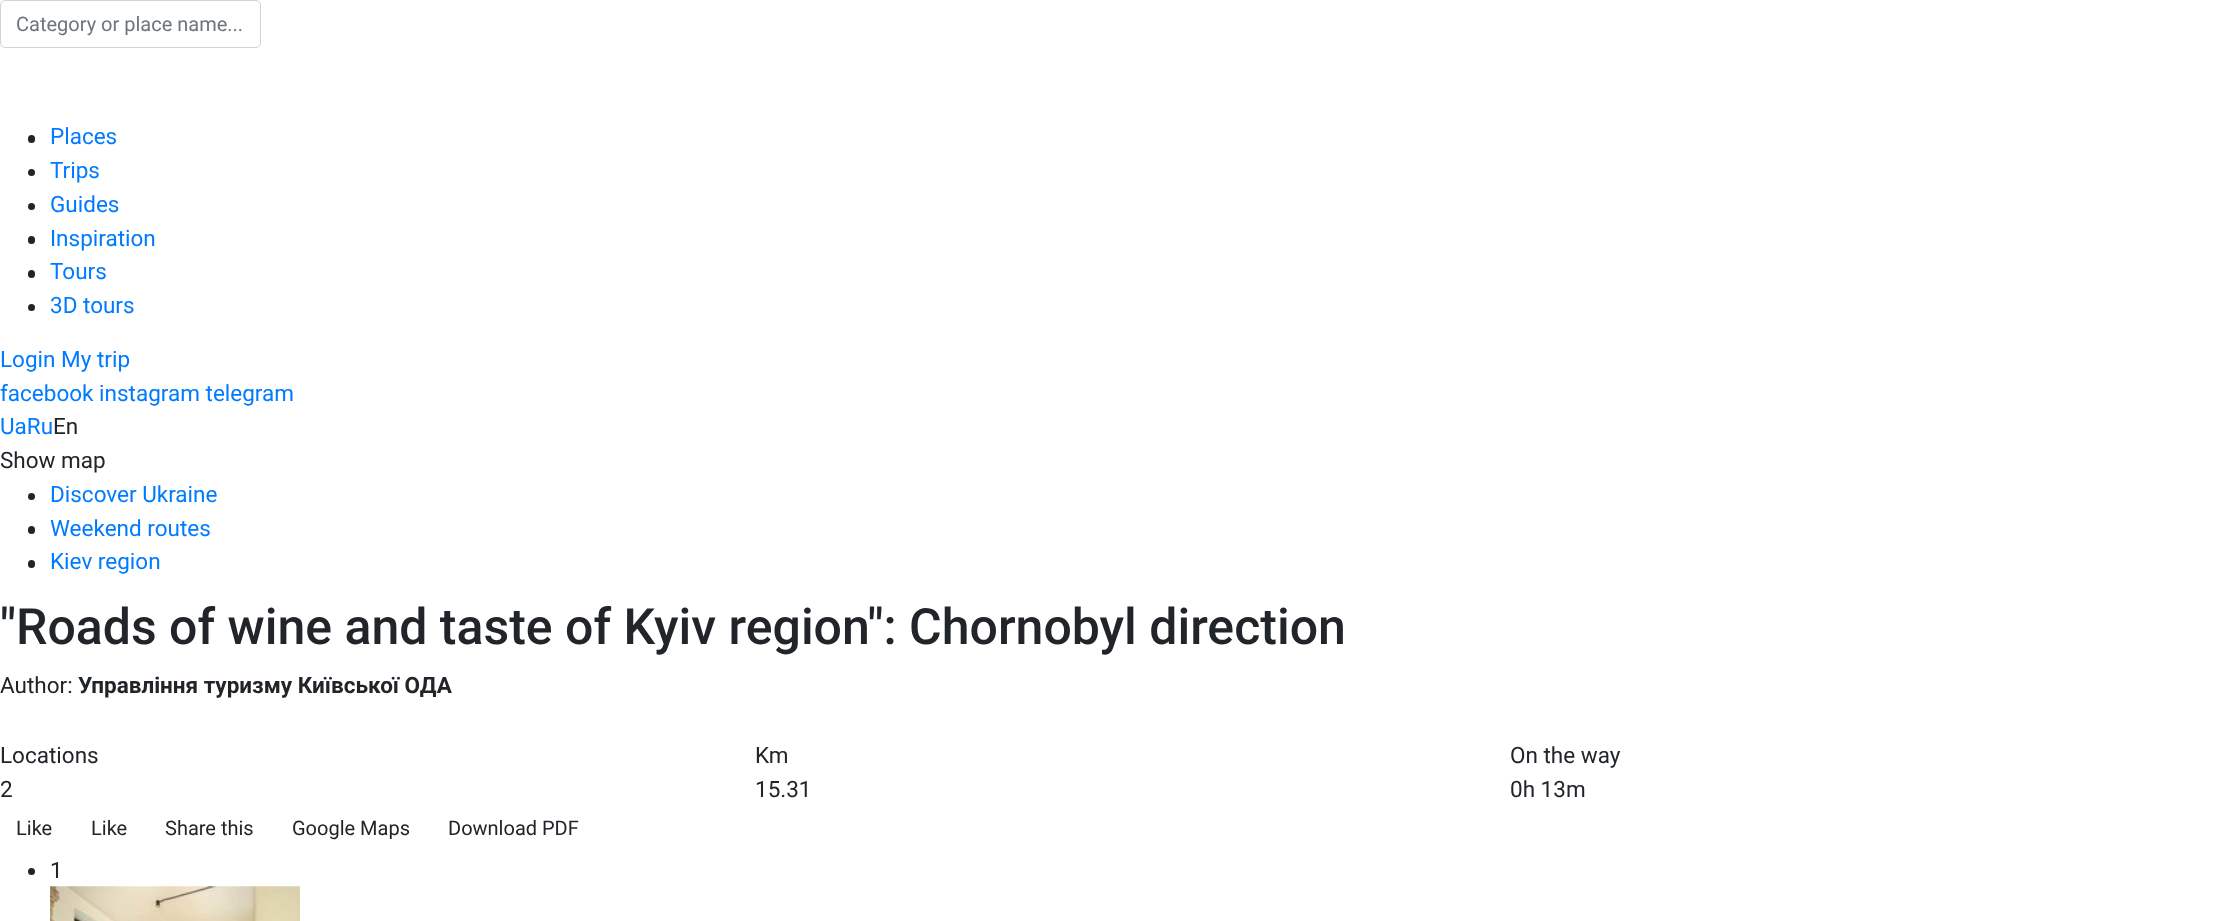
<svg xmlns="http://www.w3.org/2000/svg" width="2227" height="921">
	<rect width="100%" height="100%" fill="#FFFFFF" />
	<rect x="0.5" y="0.5" width="260" height="47" rx="4.5" fill="none" stroke="#CED4DA" />
	<text x="16" y="31" font-family="Roboto" font-size="20" fill="#6C757D">Category or place name...</text>
	<rect x="28" y="135" width="7" height="8" rx="3.5" fill="#212529" />
	<text x="50" y="144" font-family="Roboto" font-size="22.5" fill="#007BFF">Places</text>
	<circle cx="31.5" cy="172.5" r="3.5" fill="#212529" />
	<text x="50" y="178" font-family="Roboto" font-size="22.5" fill="#007BFF">Trips</text>
	<circle cx="31.5" cy="206.5" r="3.5" fill="#212529" />
	<text x="50" y="212" font-family="Roboto" font-size="22.5" fill="#007BFF">Guides</text>
	<rect x="28" y="236" width="7" height="8" rx="3.5" fill="#212529" />
	<text x="50" y="246" font-family="Roboto" font-size="22.5" fill="#007BFF">Inspiration</text>
	<rect x="28" y="270" width="7" height="8" rx="3.5" fill="#212529" />
	<text x="50" y="279" font-family="Roboto" font-size="22.5" fill="#007BFF">Tours</text>
	<circle cx="31.5" cy="307.5" r="3.5" fill="#212529" />
	<g font-family="Roboto" font-size="22.5" fill="#007BFF">
		<text x="50" y="313">3D tours</text>
		<text x="0" y="367">Login My trip</text>
		<text x="0" y="401">facebook instagram telegram</text>
		<text x="0" y="434">UaRu</text>
	</g>
	<g font-family="Roboto" font-size="22.5" fill="#212529">
		<text x="53" y="434">En</text>
		<text x="0" y="468">Show map</text>
	</g>
	<circle cx="31.5" cy="496.5" r="3.5" fill="#212529" />
	<text x="50" y="502" font-family="Roboto" font-size="22.5" fill="#007BFF">Discover Ukraine</text>
	<rect x="28" y="526" width="7" height="8" rx="3.5" fill="#212529" />
	<text x="50" y="536" font-family="Roboto" font-size="22.5" fill="#007BFF">Weekend routes</text>
	<rect x="28" y="560" width="7" height="8" rx="3.5" fill="#212529" />
	<text x="50" y="569" font-family="Roboto" font-size="22.5" fill="#007BFF">Kiev region</text>
	<text x="0" y="644" font-family="Roboto" font-size="50" font-weight="500" fill="#212529">"Roads of wine and taste of Kyiv region": Chornobyl direction</text>
	<text x="0" y="693" font-family="Roboto" font-size="22.5" fill="#212529">Author:</text>
	<text x="78" y="693" font-family="Roboto" font-size="22.5" font-weight="700" fill="#212529">Управління туризму Київської ОДА</text>
	<g font-family="Roboto" font-size="22.5" fill="#212529">
		<text x="0" y="763">Locations</text>
		<text x="0" y="797">2</text>
		<text x="755" y="763">Km</text>
		<text x="755" y="797">15.31</text>
		<text x="1510" y="763">On the way</text>
		<text x="1510" y="797">0h 13m</text>
	</g>
	<g font-family="Roboto" font-size="20" fill="#212529">
		<text x="16" y="835">Like</text>
		<text x="91" y="835">Like</text>
		<text x="165" y="835">Share this</text>
		<text x="292" y="835">Google Maps</text>
		<text x="448" y="835">Download PDF</text>
	</g>
	<circle cx="31.5" cy="871.5" r="3.5" fill="#212529" />
	<text x="50" y="878" font-family="Roboto" font-size="22.5" fill="#212529">1</text>
	<image x="50" y="886" width="250" height="35" href="assets/img1.png" />
</svg>
